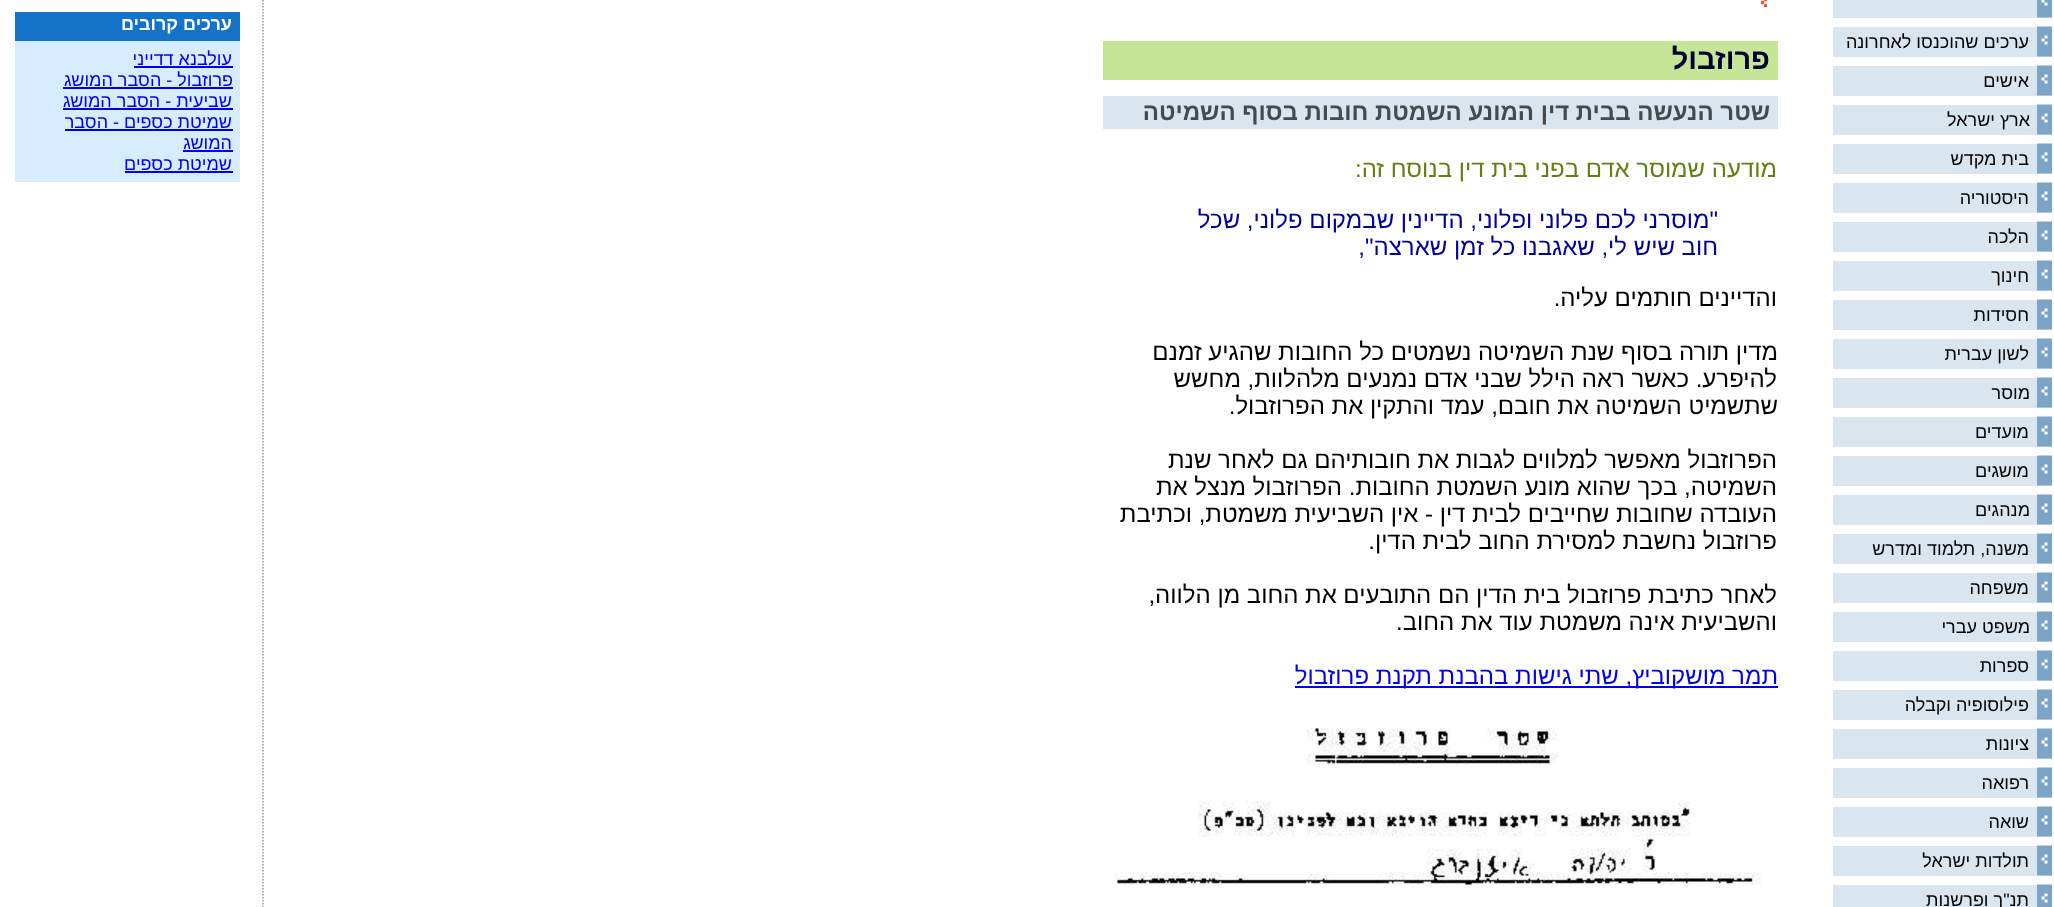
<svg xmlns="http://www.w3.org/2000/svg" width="2054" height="907">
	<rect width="100%" height="100%" fill="#FFFFFF" />
	<rect x="1833" y="0" width="219" height="18" fill="#D9E5EF" />
	<image x="2037" y="0" width="15" height="18" href="assets/img1.png" />
	<rect x="1833" y="27" width="219" height="30" fill="#D9E5EF" />
	<image x="2037" y="26" width="15" height="31" href="assets/img2.png" />
	<text x="2029" y="48" font-family="Liberation Sans" font-size="18" direction="rtl" fill="#000000">ערכים שהוכנסו לאחרונה</text>
	<rect x="1833" y="66" width="219" height="30" fill="#D9E5EF" />
	<image x="2037" y="65" width="15" height="31" href="assets/img2.png" />
	<text x="2029" y="87" font-family="Liberation Sans" font-size="18" direction="rtl" fill="#000000">אישים</text>
	<rect x="1833" y="105" width="219" height="30" fill="#D9E5EF" />
	<image x="2037" y="104" width="15" height="31" href="assets/img2.png" />
	<text x="2030" y="126" font-family="Liberation Sans" font-size="18" direction="rtl" fill="#000000">ארץ ישראל</text>
	<rect x="1833" y="144" width="219" height="30" fill="#D9E5EF" />
	<image x="2037" y="143" width="15" height="31" href="assets/img2.png" />
	<text x="2029" y="165" font-family="Liberation Sans" font-size="18" direction="rtl" fill="#000000">בית מקדש</text>
	<rect x="1833" y="183" width="219" height="30" fill="#D9E5EF" />
	<image x="2037" y="182" width="15" height="31" href="assets/img2.png" />
	<text x="2029" y="204" font-family="Liberation Sans" font-size="18" direction="rtl" fill="#000000">היסטוריה</text>
	<rect x="1833" y="222" width="219" height="30" fill="#D9E5EF" />
	<image x="2037" y="221" width="15" height="31" href="assets/img2.png" />
	<text x="2029" y="243" font-family="Liberation Sans" font-size="18" direction="rtl" fill="#000000">הלכה</text>
	<rect x="1833" y="261" width="219" height="30" fill="#D9E5EF" />
	<image x="2037" y="260" width="15" height="31" href="assets/img2.png" />
	<text x="2029" y="282" font-family="Liberation Sans" font-size="18" direction="rtl" fill="#000000">חינוך</text>
	<rect x="1833" y="300" width="219" height="30" fill="#D9E5EF" />
	<image x="2037" y="299" width="15" height="31" href="assets/img2.png" />
	<text x="2029" y="321" font-family="Liberation Sans" font-size="18" direction="rtl" fill="#000000">חסידות</text>
	<rect x="1833" y="339" width="219" height="30" fill="#D9E5EF" />
	<image x="2037" y="338" width="15" height="31" href="assets/img2.png" />
	<text x="2029" y="360" font-family="Liberation Sans" font-size="18" direction="rtl" fill="#000000">לשון עברית</text>
	<rect x="1833" y="378" width="219" height="30" fill="#D9E5EF" />
	<image x="2037" y="377" width="15" height="31" href="assets/img2.png" />
	<text x="2030" y="399" font-family="Liberation Sans" font-size="18" direction="rtl" fill="#000000">מוסר</text>
	<rect x="1833" y="417" width="219" height="30" fill="#D9E5EF" />
	<image x="2037" y="416" width="15" height="31" href="assets/img2.png" />
	<text x="2029" y="438" font-family="Liberation Sans" font-size="18" direction="rtl" fill="#000000">מועדים</text>
	<rect x="1833" y="456" width="219" height="30" fill="#D9E5EF" />
	<image x="2037" y="455" width="15" height="31" href="assets/img2.png" />
	<text x="2029" y="477" font-family="Liberation Sans" font-size="18" direction="rtl" fill="#000000">מושגים</text>
	<rect x="1833" y="495" width="219" height="30" fill="#D9E5EF" />
	<image x="2037" y="494" width="15" height="31" href="assets/img2.png" />
	<text x="2030" y="516" font-family="Liberation Sans" font-size="18" direction="rtl" fill="#000000">מנהגים</text>
	<rect x="1833" y="534" width="219" height="30" fill="#D9E5EF" />
	<image x="2037" y="533" width="15" height="31" href="assets/img2.png" />
	<text x="2029" y="555" font-family="Liberation Sans" font-size="18" direction="rtl" fill="#000000">משנה, תלמוד ומדרש</text>
	<rect x="1833" y="573" width="219" height="30" fill="#D9E5EF" />
	<image x="2037" y="572" width="15" height="31" href="assets/img2.png" />
	<text x="2029" y="594" font-family="Liberation Sans" font-size="18" direction="rtl" fill="#000000">משפחה</text>
	<rect x="1833" y="612" width="219" height="30" fill="#D9E5EF" />
	<image x="2037" y="611" width="15" height="31" href="assets/img2.png" />
	<text x="2030" y="633" font-family="Liberation Sans" font-size="18" direction="rtl" fill="#000000">משפט עברי</text>
	<rect x="1833" y="651" width="219" height="30" fill="#D9E5EF" />
	<image x="2037" y="650" width="15" height="31" href="assets/img2.png" />
	<text x="2029" y="672" font-family="Liberation Sans" font-size="18" direction="rtl" fill="#000000">ספרות</text>
	<rect x="1833" y="690" width="219" height="30" fill="#D9E5EF" />
	<image x="2037" y="689" width="15" height="31" href="assets/img2.png" />
	<text x="2029" y="711" font-family="Liberation Sans" font-size="18" direction="rtl" fill="#000000">פילוסופיה וקבלה</text>
	<rect x="1833" y="729" width="219" height="30" fill="#D9E5EF" />
	<image x="2037" y="728" width="15" height="31" href="assets/img2.png" />
	<text x="2029" y="750" font-family="Liberation Sans" font-size="18" direction="rtl" fill="#000000">ציונות</text>
	<rect x="1833" y="768" width="219" height="30" fill="#D9E5EF" />
	<image x="2037" y="767" width="15" height="31" href="assets/img2.png" />
	<text x="2029" y="789" font-family="Liberation Sans" font-size="18" direction="rtl" fill="#000000">רפואה</text>
	<rect x="1833" y="807" width="219" height="30" fill="#D9E5EF" />
	<image x="2037" y="806" width="15" height="31" href="assets/img2.png" />
	<text x="2029" y="828" font-family="Liberation Sans" font-size="18" direction="rtl" fill="#000000">שואה</text>
	<rect x="1833" y="846" width="219" height="30" fill="#D9E5EF" />
	<image x="2037" y="845" width="15" height="31" href="assets/img2.png" />
	<text x="2029" y="867" font-family="Liberation Sans" font-size="18" direction="rtl" fill="#000000">תולדות ישראל</text>
	<rect x="1833" y="885" width="204" height="22" fill="#D9E5EF" />
	<image x="2037" y="884" width="15" height="23" href="assets/img3.png" />
	<text x="2029" y="906" font-family="Liberation Sans" font-size="18" direction="rtl" fill="#000000">תנ"ך ופרשנות</text>
	<path d="M263-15V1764" fill="none" stroke="#999999" stroke-width="1.5" stroke-dasharray="1.5 1.5" />
	<image x="1761" y="0" width="6" height="7" href="assets/img4.png" />
	<rect x="1103" y="41" width="675" height="39" fill="#C4E696" />
	<text x="1770" y="69" font-family="Liberation Sans" font-size="29" font-weight="700" direction="rtl" fill="#000033">פרוזבול</text>
	<rect x="1103" y="96" width="675" height="33" fill="#D9E5EF" />
	<text x="1770" y="120" font-family="Liberation Sans" font-size="24" font-weight="700" direction="rtl" fill="#47494A">שטר הנעשה בבית דין המונע השמטת חובות בסוף השמיטה</text>
	<text x="1777" y="177" font-family="Liberation Sans" font-size="24" direction="rtl" fill="#608010">מודעה שמוסר אדם בפני בית דין בנוסח זה:</text>
	<g font-family="Liberation Sans" font-size="24" direction="rtl" fill="#000099">
		<text x="1718" y="228">"מוסרני לכם פלוני ופלוני, הדיינין שבמקום פלוני, שכל</text>
		<text x="1718" y="255">חוב שיש לי, שאגבנו כל זמן שארצה",</text>
	</g>
	<g font-family="Liberation Sans" font-size="24" direction="rtl" fill="#000000">
		<text x="1777" y="306">והדיינים חותמים עליה.</text>
		<text x="1778" y="360">מדין תורה בסוף שנת השמיטה נשמטים כל החובות שהגיע זמנם</text>
		<text x="1777" y="387">להיפרע. כאשר ראה הילל שבני אדם נמנעים מלהלוות, מחשש</text>
		<text x="1778" y="414">שתשמיט השמיטה את חובם, עמד והתקין את הפרוזבול.</text>
		<text x="1777" y="468">הפרוזבול מאפשר למלווים לגבות את חובותיהם גם לאחר שנת</text>
		<text x="1777" y="495">השמיטה, בכך שהוא מונע השמטת החובות. הפרוזבול מנצל את</text>
		<text x="1777" y="522">העובדה שחובות שחייבים לבית דין - אין השביעית משמטת, וכתיבת</text>
		<text x="1777" y="549">פרוזבול נחשבת למסירת החוב לבית הדין.</text>
		<text x="1777" y="603">לאחר כתיבת פרוזבול בית הדין הם התובעים את החוב מן הלווה,</text>
		<text x="1777" y="630">והשביעית אינה משמטת עוד את החוב.</text>
	</g>
	<rect x="1295" y="686" width="483" height="2" fill="#0000EE" />
	<text x="1778" y="684" font-family="Liberation Sans" font-size="24" direction="rtl" fill="#0000EE">תמר מושקוביץ, שתי גישות בהבנת תקנת פרוזבול</text>
	<image x="1114" y="728" width="648" height="157" href="assets/img5.png" />
	<rect x="15" y="12" width="225" height="29" fill="#1273C7" />
	<text x="232" y="30" font-family="Liberation Sans" font-size="18" font-weight="700" direction="rtl" fill="#FFFFFF">ערכים קרובים</text>
	<rect x="15" y="41" width="225" height="141" fill="#D6ECFF" />
	<text x="232" y="65" font-family="Liberation Sans" font-size="18" direction="rtl" fill="#0000EE">עולבנא דדייני</text>
	<rect x="134" y="66" width="99" height="2" fill="#0000EE" />
	<text x="233" y="86" font-family="Liberation Sans" font-size="18" direction="rtl" fill="#0000EE">פרוזבול - הסבר המושג</text>
	<rect x="63" y="87" width="170" height="2" fill="#0000EE" />
	<text x="232" y="107" font-family="Liberation Sans" font-size="18" direction="rtl" fill="#0000EE">שביעית - הסבר המושג</text>
	<rect x="63" y="108" width="170" height="2" fill="#0000EE" />
	<text x="232" y="128" font-family="Liberation Sans" font-size="18" direction="rtl" fill="#0000EE">שמיטת כספים - הסבר</text>
	<rect x="65" y="129" width="168" height="2" fill="#0000EE" />
	<text x="232" y="149" font-family="Liberation Sans" font-size="18" direction="rtl" fill="#0000EE">המושג</text>
	<rect x="183" y="150" width="50" height="2" fill="#0000EE" />
	<text x="232" y="170" font-family="Liberation Sans" font-size="18" direction="rtl" fill="#0000EE">שמיטת כספים</text>
	<rect x="125" y="171" width="108" height="2" fill="#0000EE" />
</svg>
